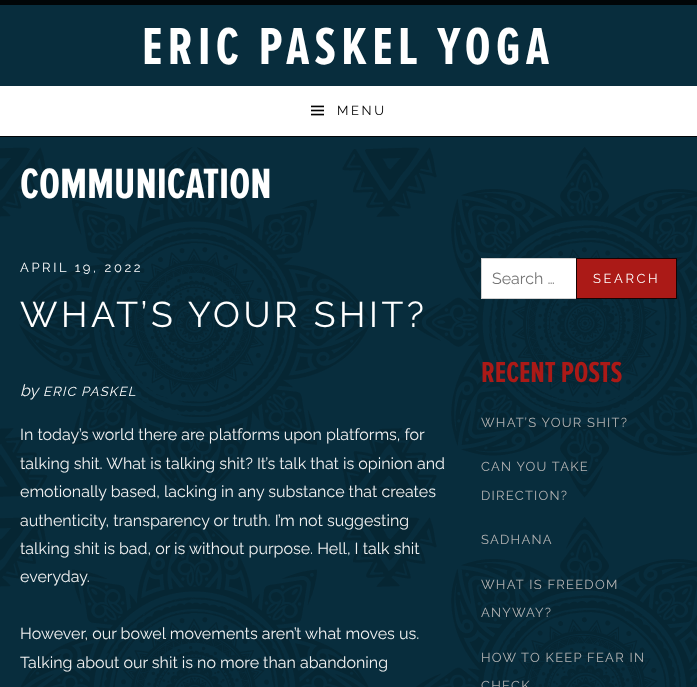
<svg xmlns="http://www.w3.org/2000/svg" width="697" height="687">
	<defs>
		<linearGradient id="g1" gradientUnits="userSpaceOnUse" x1="349" y1="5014" x2="349" y2="0"><stop offset="0" stop-color="#000000" /><stop offset="0.6" stop-color="#082D3D" /></linearGradient>
	</defs>
	<rect width="100%" height="100%" fill="#FFFFFF" />
	<rect x="0" y="5" width="697" height="682" fill="url(#g1)" />
	<rect x="0" y="0" width="697" height="5" fill="#010507" />
	<rect x="0" y="136" width="697" height="1" fill="#010507" />
	<text x="142" y="64" font-family="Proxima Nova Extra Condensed" font-size="54" font-weight="700" letter-spacing="5.4" fill="#FFFFFF">ERIC PASKEL YOGA</text>
	<rect x="0" y="86" width="697" height="50" fill="#FFFFFF" />
	<image x="311" y="105" width="13" height="11" href="assets/img1.png" />
	<text x="337" y="115" font-family="Raleway" font-size="13" letter-spacing="2.6" fill="#000000">MENU</text>
	<image x="0" y="147" width="697" height="540" href="assets/img2.png" />
	<text x="20" y="198" font-family="Proxima Nova Extra Condensed" font-size="44" font-weight="700" fill="#FFFFFF">COMMUNICATION</text>
	<text x="20" y="272" font-family="Raleway" font-size="13" letter-spacing="2.6" fill="#FFFFFF">APRIL 19, 2022</text>
	<text x="20" y="396" font-family="Raleway" font-size="16" font-style="italic" fill="#F2F2F2">by</text>
	<text x="43" y="396" font-family="Raleway" font-size="13" font-style="italic" letter-spacing="1.25" fill="#FFFFFF">ERIC PASKEL</text>
	<text x="20" y="327" font-family="Raleway" font-size="35.75" letter-spacing="3.6" fill="#FFFFFF">WHAT’S YOUR SHIT?</text>
	<g font-family="Raleway" font-size="16" fill="#F2F2F2">
		<text x="20" y="440">In today’s world there are platforms upon platforms, for</text>
		<text x="20" y="469">talking shit. What is talking shit? It’s talk that is opinion and</text>
		<text x="20" y="497">emotionally based, lacking in any substance that creates</text>
		<text x="20" y="526">authenticity, transparency or truth. I’m not suggesting</text>
		<text x="20" y="554">talking shit is bad, or is without purpose. Hell, I talk shit</text>
		<text x="20" y="582">everyday.</text>
		<text x="20" y="639">However, our bowel movements aren’t what moves us.</text>
		<text x="20" y="668">Talking about our shit is no more than abandoning</text>
	</g>
	<rect x="482" y="259" width="94" height="39" fill="#FFFFFF" />
	<rect x="481.5" y="258.5" width="97" height="40" fill="none" stroke="#D1D1D1" />
	<text x="492" y="284" font-family="Raleway" font-size="16" fill="#757575">Search …</text>
	<rect x="576.5" y="258.5" width="100" height="40" fill="#AB1A17" stroke="#150303" />
	<text x="593" y="283" font-family="Raleway" font-size="13" letter-spacing="2.6" fill="#FFFFFF">SEARCH</text>
	<text x="481" y="382" font-family="Proxima Nova Extra Condensed" font-size="30" font-weight="700" fill="#AB1A17">RECENT POSTS</text>
	<g font-family="Raleway" font-size="13" letter-spacing="1.25" fill="#B3B3B3">
		<text x="481" y="427">WHAT’S YOUR SHIT?</text>
		<text x="481" y="471">CAN YOU TAKE</text>
		<text x="481" y="500">DIRECTION?</text>
		<text x="481" y="544">SADHANA</text>
		<text x="481" y="589">WHAT IS FREEDOM</text>
		<text x="481" y="617">ANYWAY?</text>
		<text x="481" y="662">HOW TO KEEP FEAR IN</text>
		<text x="481" y="690">CHECK</text>
	</g>
</svg>
